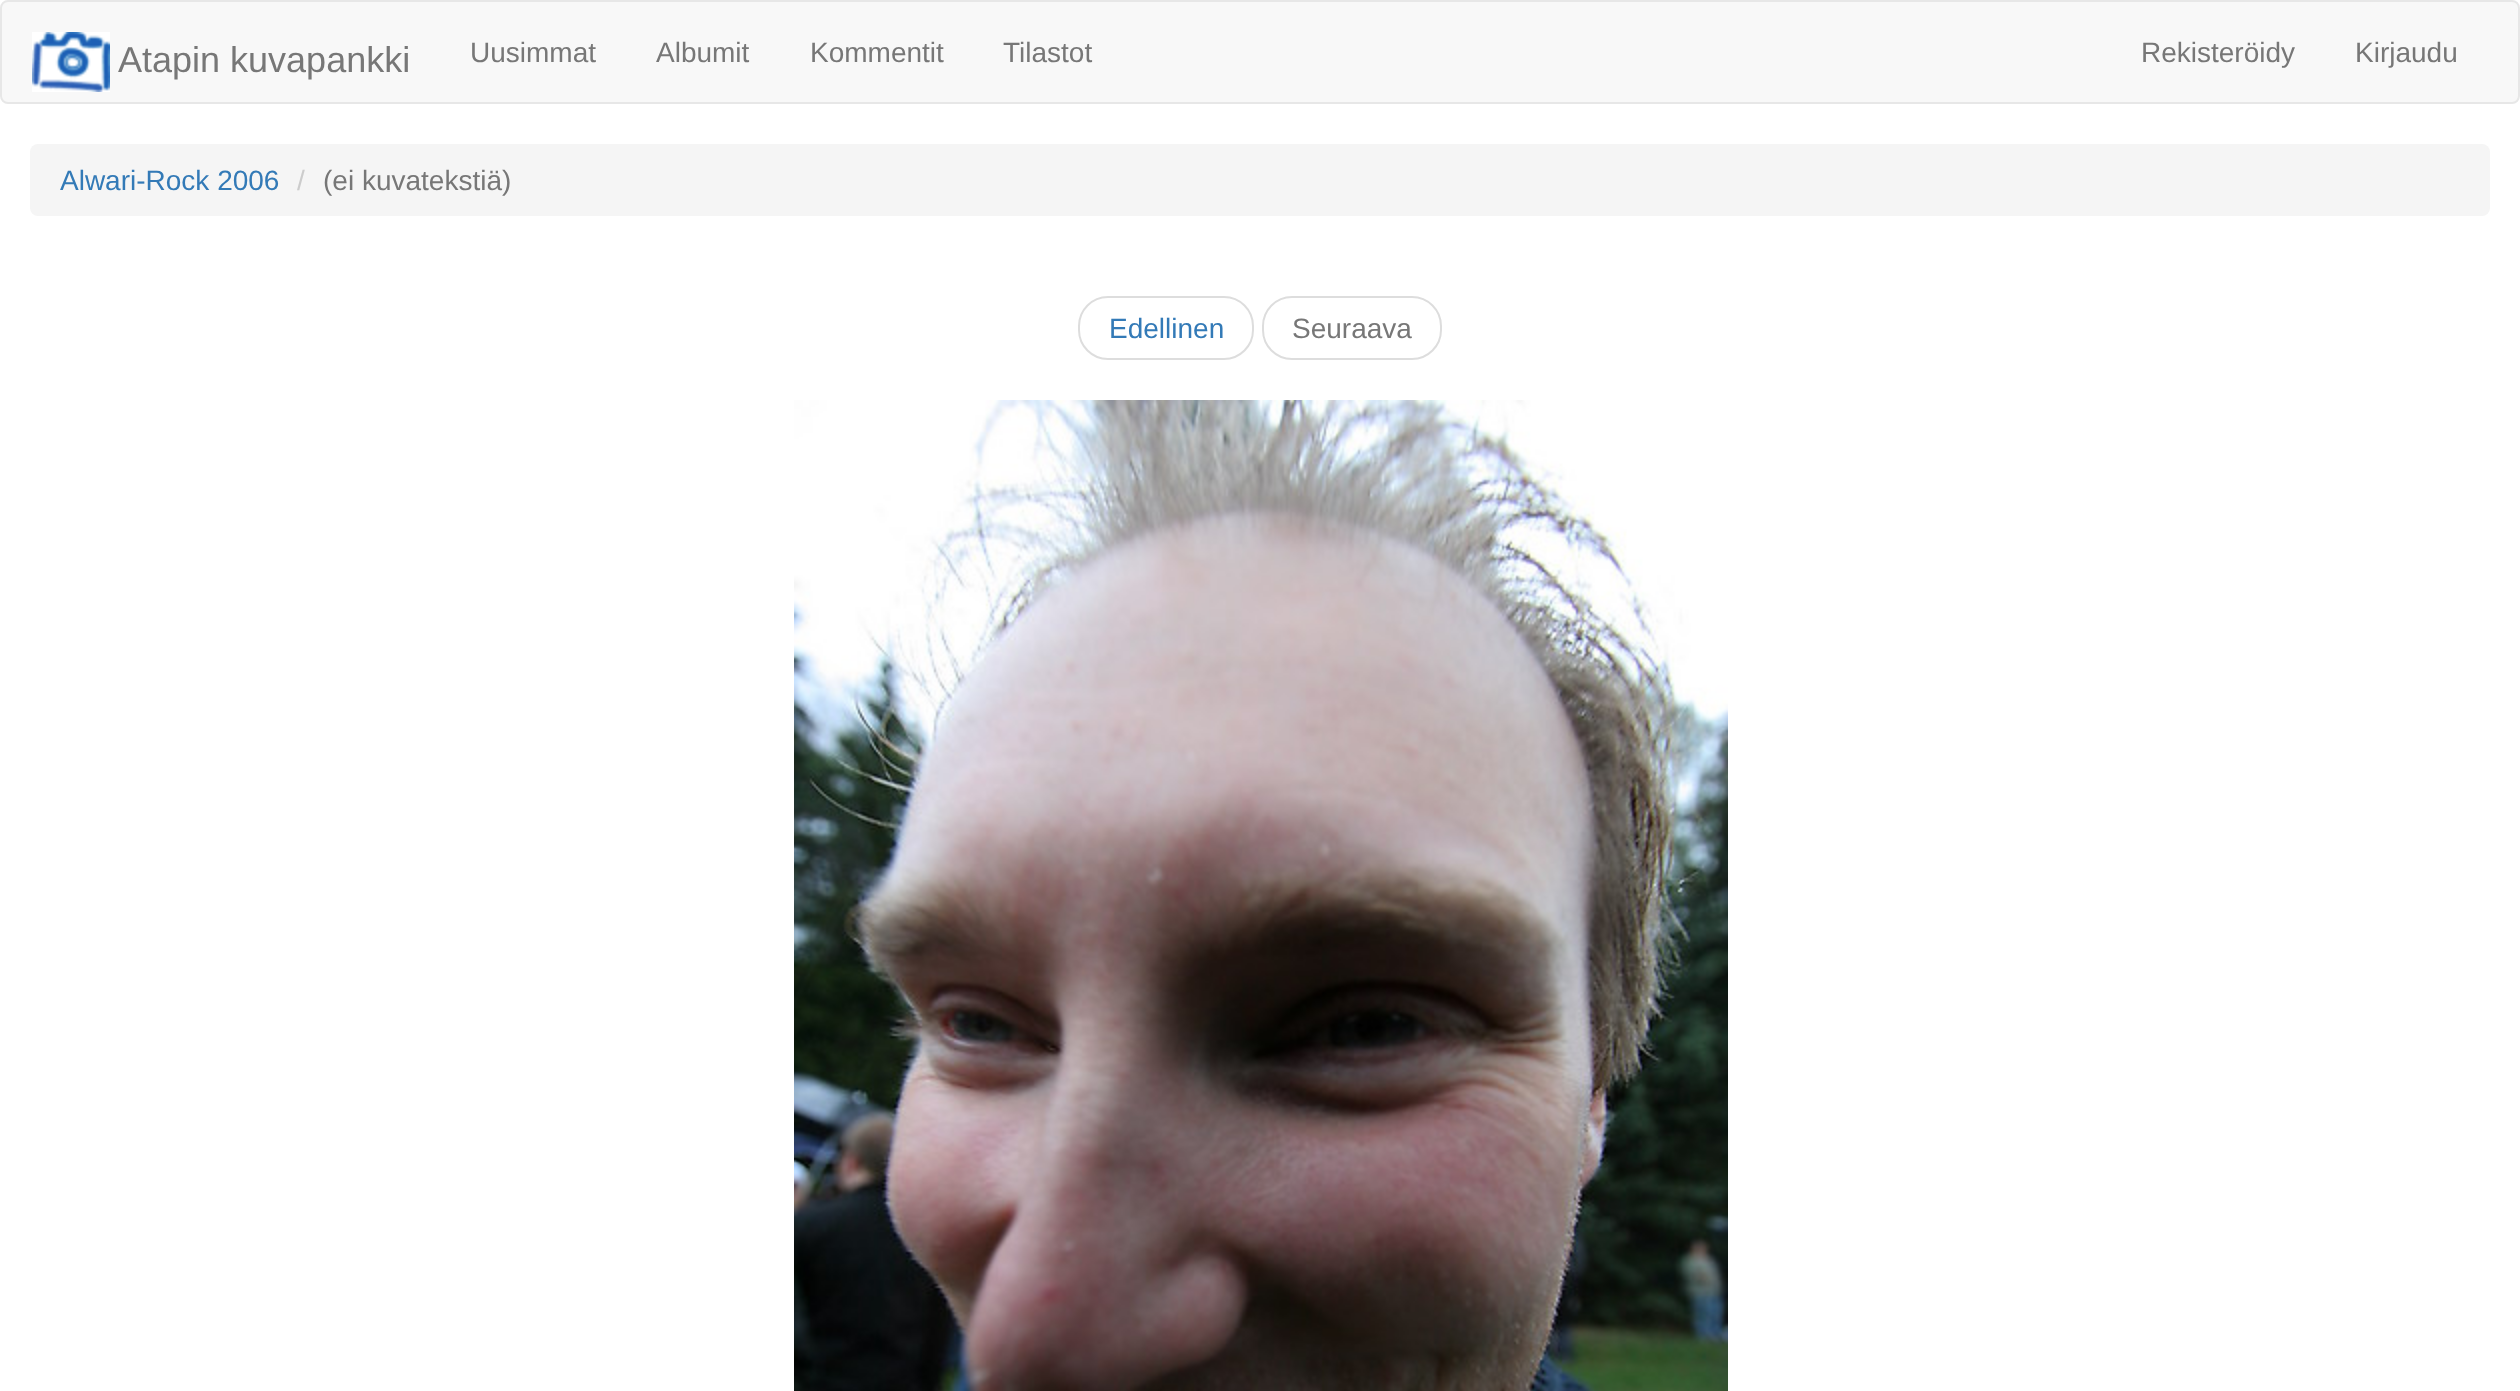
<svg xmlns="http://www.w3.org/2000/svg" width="2520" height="1391">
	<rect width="100%" height="100%" fill="#FFFFFF" />
	<rect x="1" y="1" width="2518" height="102" rx="7" fill="#F8F8F8" stroke="#E7E7E7" stroke-width="2" />
	<image x="32" y="32" width="78" height="60" href="assets/img1.png" />
	<text x="118" y="72" font-family="Liberation Sans" font-size="36" fill="#777777">Atapin kuvapankki</text>
	<g font-family="Liberation Sans" font-size="28" fill="#777777">
		<text x="470" y="62">Uusimmat</text>
		<text x="656" y="62">Albumit</text>
		<text x="810" y="62">Kommentit</text>
		<text x="1003" y="62">Tilastot</text>
		<text x="2141" y="62">Rekisteröidy</text>
		<text x="2355" y="62">Kirjaudu</text>
	</g>
	<rect x="30" y="144" width="2460" height="72" rx="8" fill="#F5F5F5" />
	<text x="60" y="190" font-family="Liberation Sans" font-size="28" fill="#337AB7">Alwari-Rock 2006</text>
	<text x="297" y="190" font-family="Liberation Sans" font-size="28" fill="#CCCCCC">/</text>
	<text x="323" y="190" font-family="Liberation Sans" font-size="28" fill="#777777">(ei kuvatekstiä)</text>
	<rect x="1079" y="297" width="174" height="62" rx="29" fill="none" stroke="#DDDDDD" stroke-width="2" />
	<text x="1109" y="338" font-family="Liberation Sans" font-size="28" fill="#337AB7">Edellinen</text>
	<rect x="1263" y="297" width="178" height="62" rx="29" fill="none" stroke="#DDDDDD" stroke-width="2" />
	<text x="1292" y="338" font-family="Liberation Sans" font-size="28" fill="#777777">Seuraava</text>
	<image x="794" y="400" width="934" height="991" href="assets/img2.png" />
</svg>
